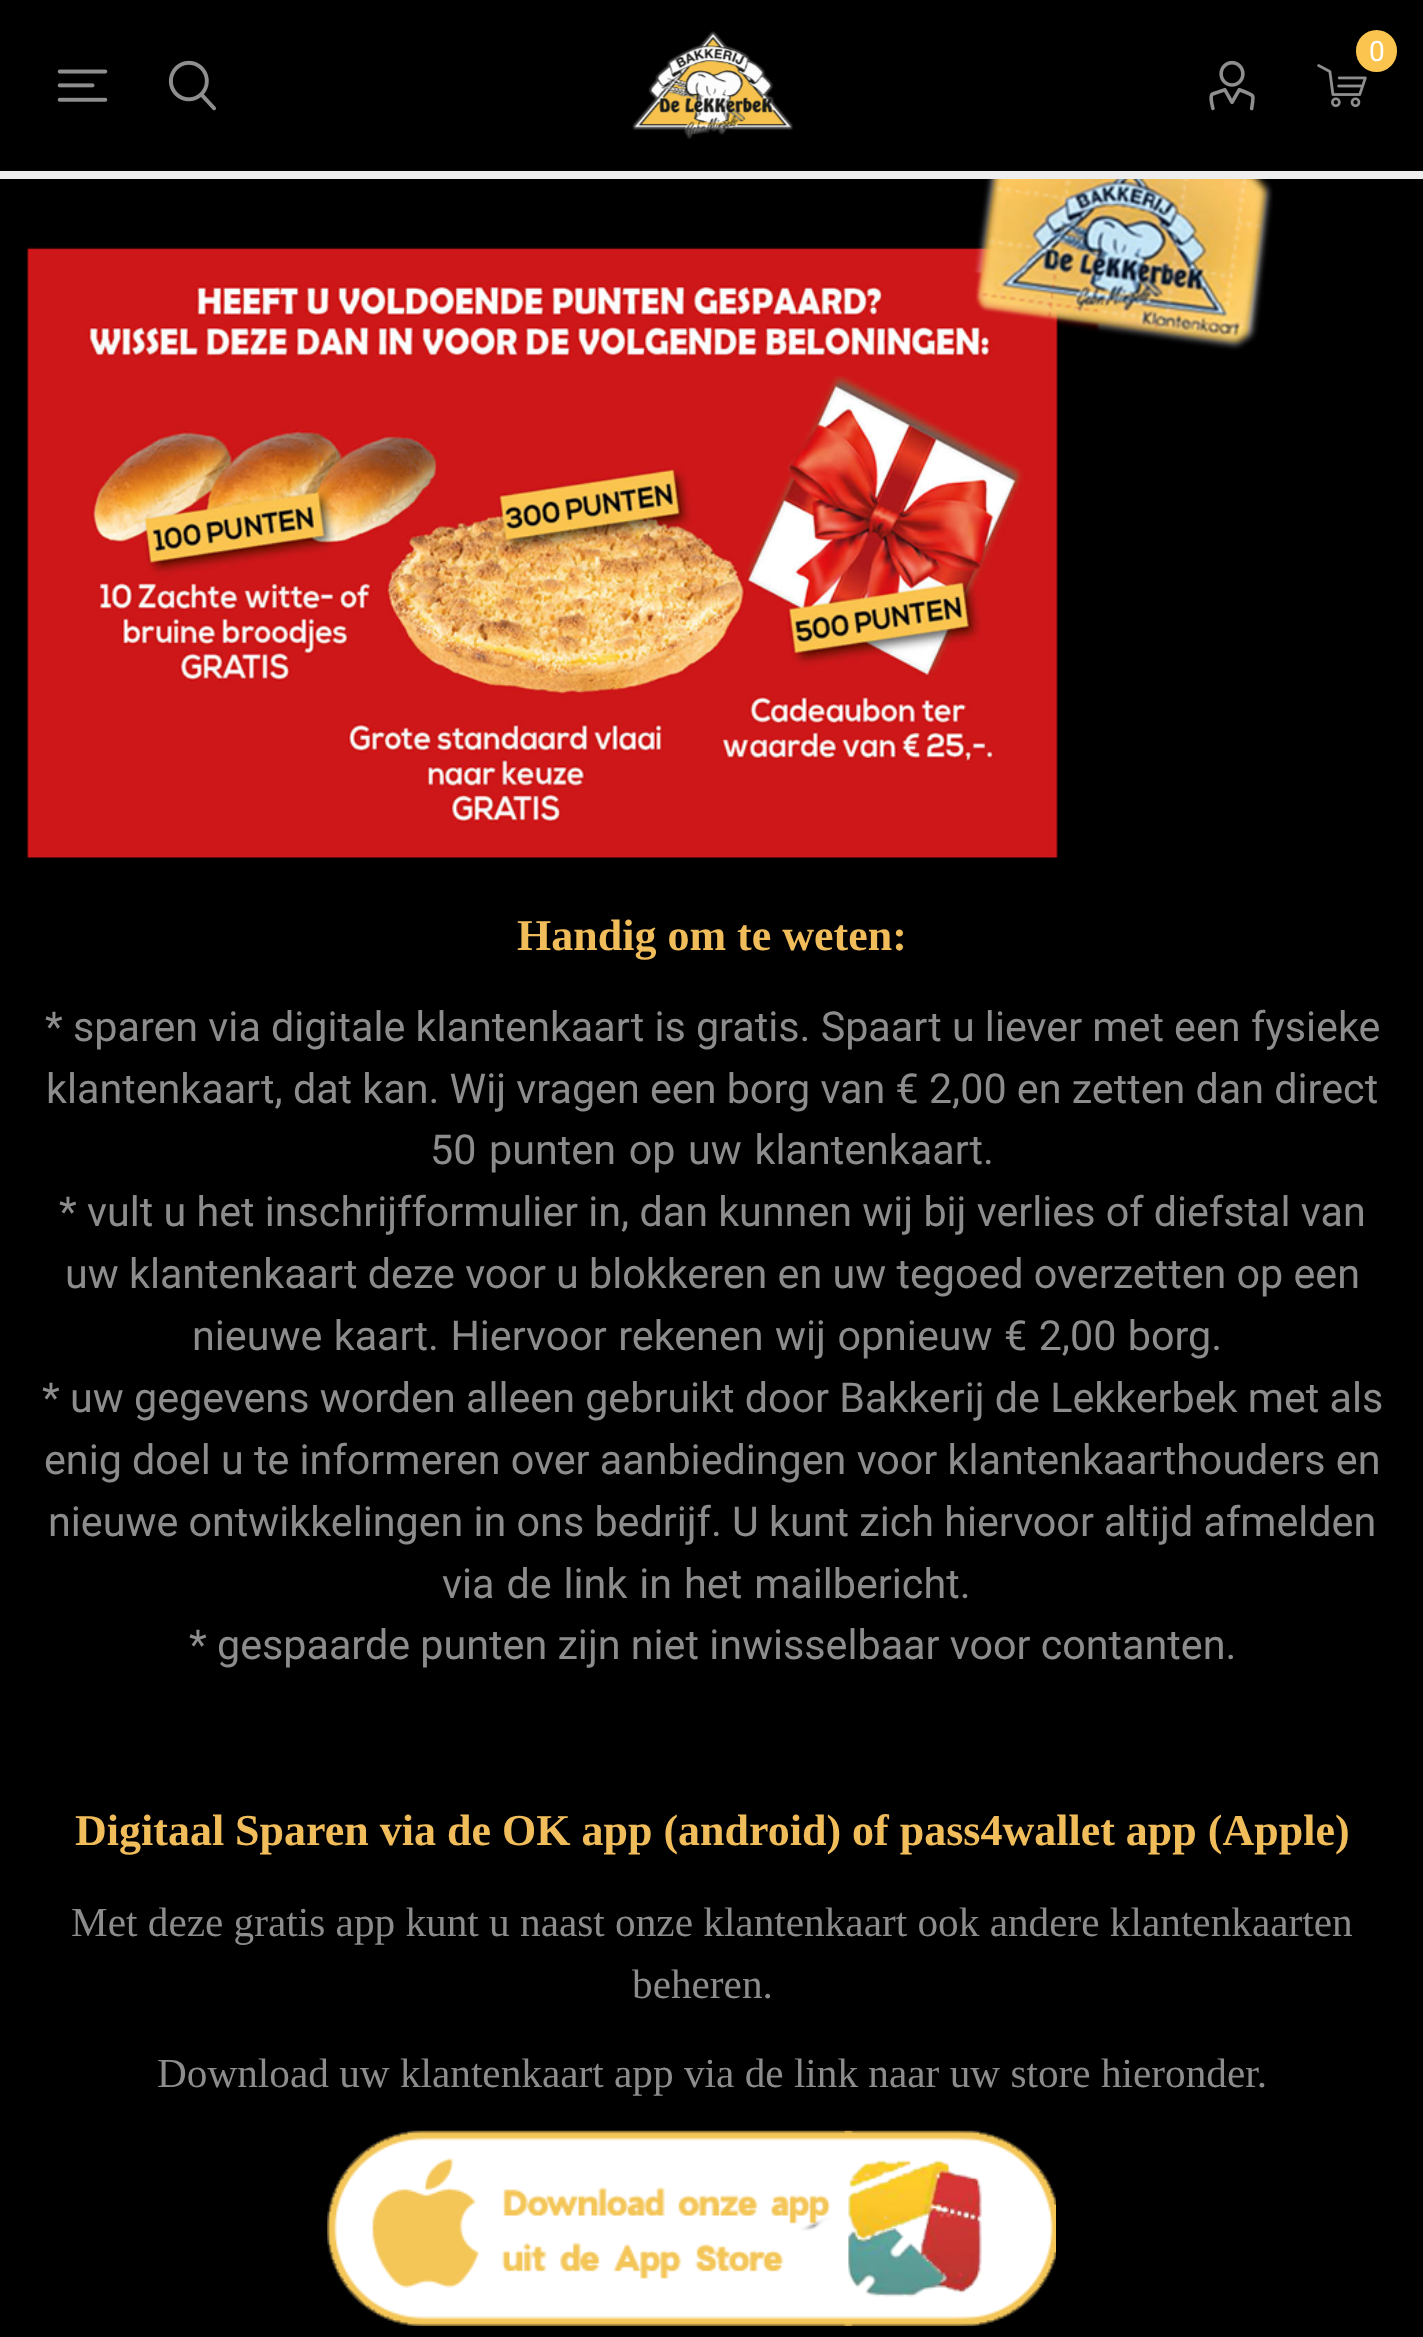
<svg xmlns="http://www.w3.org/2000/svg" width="1423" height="2337">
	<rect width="100%" height="100%" fill="#000000" />
	<rect x="0" y="171" width="1423" height="8" fill="#EEEEEE" />
	<image x="632" y="31" width="161" height="108" href="assets/img1.png" />
	<image x="1317" y="64" width="50" height="44" href="assets/img2.png" />
	<rect x="1356" y="30" width="41" height="42" rx="20.5" fill="#FAC44F" />
	<text x="1369" y="61" font-family="Roboto" font-size="28" fill="#FFFFFF">0</text>
	<image x="57" y="69" width="51" height="33" href="assets/img3.png" />
	<image x="168" y="60" width="48" height="51" href="assets/img4.png" />
	<image x="1209" y="60" width="46" height="51" href="assets/img5.png" />
	<image x="27" y="179" width="1246" height="679" href="assets/img6.png" />
	<text x="517" y="950" font-family="Liberation Serif" font-size="44" font-weight="700" fill="#F1BD5B">Handig om te weten:</text>
	<g font-family="Roboto" font-size="41.25" fill="#8C8C8C">
		<text x="45" y="1041">* sparen via digitale klantenkaart is gratis. Spaart u liever met een fysieke</text>
		<text x="46" y="1103">klantenkaart, dat kan. Wij vragen een borg van € 2,00 en zetten dan direct</text>
		<text x="430" y="1164" word-spacing="2.5">50 punten op uw klantenkaart.</text>
		<text x="59" y="1226">* vult u het inschrijfformulier in, dan kunnen wij bij verlies of diefstal van</text>
		<text x="65" y="1288">uw klantenkaart deze voor u blokkeren en uw tegoed overzetten op een</text>
		<text x="192" y="1350" word-spacing="1.25">nieuwe kaart. Hiervoor rekenen wij opnieuw € 2,00 borg.</text>
		<text x="42" y="1412">* uw gegevens worden alleen gebruikt door Bakkerij de Lekkerbek met als</text>
		<text x="44" y="1474">enig doel u te informeren over aanbiedingen voor klantenkaarthouders en</text>
		<text x="48" y="1536">nieuwe ontwikkelingen in ons bedrijf. U kunt zich hiervoor altijd afmelden</text>
		<text x="442" y="1598" word-spacing="1.75">via de link in het mailbericht.</text>
		<text x="189" y="1659">* gespaarde punten zijn niet inwisselbaar voor contanten.</text>
	</g>
	<text x="75" y="1845" font-family="Liberation Serif" font-size="44" font-weight="700" fill="#F1BD5B">Digitaal Sparen via de OK app (android) of pass4wallet app (Apple)</text>
	<g font-family="Liberation Serif" font-size="41.25" fill="#8C8C8C">
		<text x="71" y="1936">Met deze gratis app kunt u naast onze klantenkaart ook andere klantenkaarten</text>
		<text x="632" y="1998">beheren.</text>
		<text x="157" y="2087">Download uw klantenkaart app via de link naar uw store hieronder.</text>
	</g>
	<image x="327" y="2130" width="729" height="196" href="assets/img7.png" />
</svg>
